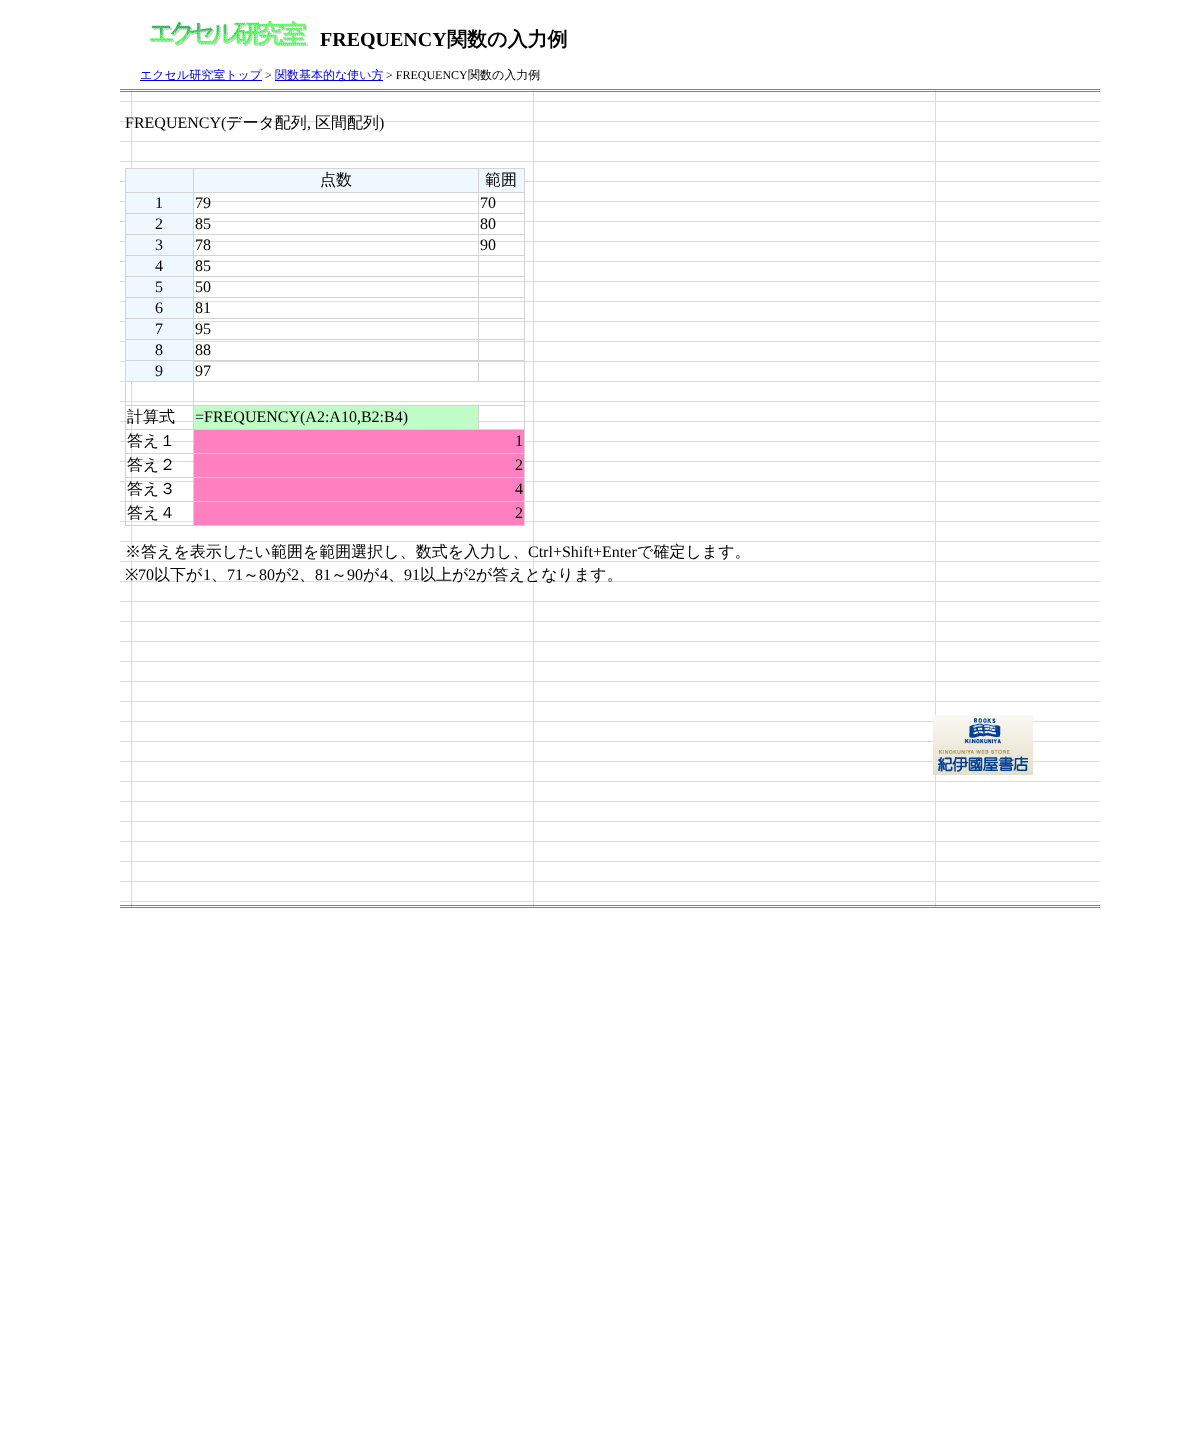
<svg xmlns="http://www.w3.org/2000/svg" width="1200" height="1445">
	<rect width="100%" height="100%" fill="#FFFFFF" />
	<image x="150" y="21" width="158" height="26" href="assets/img1.png" />
	<text x="320" y="46" font-family="Liberation Serif" font-size="20" font-weight="700" fill="#000000">FREQUENCY</text>
	<text x="447" y="46" font-family="WenQuanYi Zen Hei" font-size="20" font-weight="700" fill="#000000">関数の入力例</text>
	<rect x="140" y="80" width="122" height="1" fill="#0000EE" />
	<text x="140" y="79" font-family="WenQuanYi Zen Hei" font-size="12" font-weight="500" fill="#0000EE">エクセル研究室トップ</text>
	<text x="265" y="79" font-family="Liberation Serif" font-size="12" fill="#000000">&gt;</text>
	<rect x="275" y="80" width="108" height="1" fill="#0000EE" />
	<text x="275" y="79" font-family="WenQuanYi Zen Hei" font-size="12" font-weight="500" fill="#0000EE">関数基本的な使い方</text>
	<text x="386" y="79" font-family="Liberation Serif" font-size="12" fill="#000000">&gt; FREQUENCY</text>
	<text x="468" y="79" font-family="WenQuanYi Zen Hei" font-size="12" font-weight="500" fill="#000000">関数の入力例</text>
	<image x="120" y="90" width="980" height="817" href="assets/img2.png" />
	<rect x="120" y="89" width="980" height="1" fill="#808080" />
	<rect x="120" y="91" width="980" height="1" fill="#808080" />
	<rect x="120" y="905" width="980" height="1" fill="#808080" />
	<rect x="120" y="907" width="980" height="1" fill="#808080" />
	<text x="125" y="128" font-family="Liberation Serif" font-size="16" fill="#000000">FREQUENCY(</text>
	<text x="226" y="128" font-family="WenQuanYi Zen Hei" font-size="16" font-weight="500" fill="#000000">データ配列</text>
	<text x="307" y="128" font-family="Liberation Serif" font-size="16" fill="#000000">,</text>
	<text x="315" y="128" font-family="WenQuanYi Zen Hei" font-size="16" font-weight="500" fill="#000000">区間配列</text>
	<text x="379" y="128" font-family="Liberation Serif" font-size="16" fill="#000000">)</text>
	<rect x="125" y="168" width="400" height="1" fill="#D3D3D3" />
	<rect x="524" y="168" width="1" height="358" fill="#D3D3D3" />
	<rect x="125" y="525" width="400" height="1" fill="#D3D3D3" />
	<rect x="125" y="168" width="1" height="358" fill="#D3D3D3" />
	<rect x="126" y="169" width="67" height="23" fill="#F0F8FF" />
	<rect x="194" y="169" width="284" height="23" fill="#F0F8FF" />
	<rect x="478" y="192" width="47" height="1" fill="#D3D3D3" />
	<rect x="478" y="213" width="47" height="1" fill="#D3D3D3" />
	<rect x="478" y="234" width="47" height="1" fill="#D3D3D3" />
	<rect x="478" y="255" width="47" height="1" fill="#D3D3D3" />
	<rect x="478" y="276" width="47" height="1" fill="#D3D3D3" />
	<rect x="478" y="297" width="47" height="1" fill="#D3D3D3" />
	<rect x="478" y="318" width="47" height="1" fill="#D3D3D3" />
	<rect x="478" y="339" width="47" height="1" fill="#D3D3D3" />
	<rect x="478" y="360" width="47" height="1" fill="#D3D3D3" />
	<rect x="193" y="381" width="332" height="1" fill="#D3D3D3" />
	<rect x="478" y="360" width="1" height="22" fill="#D3D3D3" />
	<rect x="193" y="360" width="286" height="1" fill="#D3D3D3" />
	<rect x="478" y="339" width="1" height="22" fill="#D3D3D3" />
	<rect x="193" y="339" width="286" height="1" fill="#D3D3D3" />
	<rect x="478" y="318" width="1" height="22" fill="#D3D3D3" />
	<rect x="193" y="318" width="286" height="1" fill="#D3D3D3" />
	<rect x="478" y="297" width="1" height="22" fill="#D3D3D3" />
	<rect x="193" y="297" width="286" height="1" fill="#D3D3D3" />
	<rect x="478" y="276" width="1" height="22" fill="#D3D3D3" />
	<rect x="193" y="276" width="286" height="1" fill="#D3D3D3" />
	<rect x="478" y="255" width="1" height="22" fill="#D3D3D3" />
	<rect x="193" y="255" width="286" height="1" fill="#D3D3D3" />
	<rect x="478" y="234" width="1" height="22" fill="#D3D3D3" />
	<rect x="193" y="234" width="286" height="1" fill="#D3D3D3" />
	<rect x="478" y="213" width="1" height="22" fill="#D3D3D3" />
	<rect x="193" y="213" width="286" height="1" fill="#D3D3D3" />
	<rect x="478" y="192" width="1" height="22" fill="#D3D3D3" />
	<rect x="193" y="192" width="286" height="1" fill="#D3D3D3" />
	<rect x="193" y="429" width="332" height="1" fill="#D3D3D3" />
	<rect x="478" y="405" width="1" height="25" fill="#D3D3D3" />
	<rect x="193" y="453" width="332" height="1" fill="#D3D3D3" />
	<rect x="193" y="477" width="332" height="1" fill="#D3D3D3" />
	<rect x="193" y="501" width="332" height="1" fill="#D3D3D3" />
	<rect x="193" y="501" width="1" height="25" fill="#D3D3D3" />
	<rect x="125" y="501" width="69" height="1" fill="#D3D3D3" />
	<rect x="193" y="477" width="1" height="25" fill="#D3D3D3" />
	<rect x="125" y="477" width="69" height="1" fill="#D3D3D3" />
	<rect x="193" y="453" width="1" height="25" fill="#D3D3D3" />
	<rect x="125" y="453" width="69" height="1" fill="#D3D3D3" />
	<rect x="193" y="429" width="1" height="25" fill="#D3D3D3" />
	<rect x="125" y="429" width="69" height="1" fill="#D3D3D3" />
	<rect x="193" y="405" width="1" height="25" fill="#D3D3D3" />
	<rect x="125" y="405" width="400" height="1" fill="#D3D3D3" />
	<rect x="193" y="381" width="1" height="25" fill="#D3D3D3" />
	<rect x="193" y="360" width="1" height="22" fill="#D3D3D3" />
	<rect x="125" y="360" width="69" height="1" fill="#D3D3D3" />
	<rect x="193" y="339" width="1" height="22" fill="#D3D3D3" />
	<rect x="125" y="339" width="69" height="1" fill="#D3D3D3" />
	<rect x="193" y="318" width="1" height="22" fill="#D3D3D3" />
	<rect x="125" y="318" width="69" height="1" fill="#D3D3D3" />
	<rect x="193" y="297" width="1" height="22" fill="#D3D3D3" />
	<rect x="125" y="297" width="69" height="1" fill="#D3D3D3" />
	<rect x="193" y="276" width="1" height="22" fill="#D3D3D3" />
	<rect x="125" y="276" width="69" height="1" fill="#D3D3D3" />
	<rect x="193" y="255" width="1" height="22" fill="#D3D3D3" />
	<rect x="125" y="255" width="69" height="1" fill="#D3D3D3" />
	<rect x="193" y="234" width="1" height="22" fill="#D3D3D3" />
	<rect x="125" y="234" width="69" height="1" fill="#D3D3D3" />
	<rect x="193" y="213" width="1" height="22" fill="#D3D3D3" />
	<rect x="125" y="213" width="69" height="1" fill="#D3D3D3" />
	<rect x="193" y="192" width="1" height="22" fill="#D3D3D3" />
	<rect x="125" y="192" width="69" height="1" fill="#D3D3D3" />
	<rect x="193" y="168" width="1" height="25" fill="#D3D3D3" />
	<text x="320" y="185" font-family="WenQuanYi Zen Hei" font-size="16" font-weight="500" fill="#000000">点数</text>
	<rect x="479" y="169" width="45" height="23" fill="#F0F8FF" />
	<rect x="478" y="168" width="1" height="25" fill="#D3D3D3" />
	<text x="485" y="185" font-family="WenQuanYi Zen Hei" font-size="16" font-weight="500" fill="#000000">範囲</text>
	<rect x="126" y="193" width="67" height="20" fill="#F0F8FF" />
	<g font-family="Liberation Serif" font-size="16" fill="#000000">
		<text x="155" y="208">1</text>
		<text x="195" y="208">79</text>
		<text x="480" y="208">70</text>
	</g>
	<rect x="126" y="214" width="67" height="20" fill="#F0F8FF" />
	<g font-family="Liberation Serif" font-size="16" fill="#000000">
		<text x="155" y="229">2</text>
		<text x="195" y="229">85</text>
		<text x="480" y="229">80</text>
	</g>
	<rect x="126" y="235" width="67" height="20" fill="#F0F8FF" />
	<g font-family="Liberation Serif" font-size="16" fill="#000000">
		<text x="155" y="250">3</text>
		<text x="195" y="250">78</text>
		<text x="480" y="250">90</text>
	</g>
	<rect x="126" y="256" width="67" height="20" fill="#F0F8FF" />
	<g font-family="Liberation Serif" font-size="16" fill="#000000">
		<text x="155" y="271">4</text>
		<text x="195" y="271">85</text>
	</g>
	<rect x="126" y="277" width="67" height="20" fill="#F0F8FF" />
	<g font-family="Liberation Serif" font-size="16" fill="#000000">
		<text x="155" y="292">5</text>
		<text x="195" y="292">50</text>
	</g>
	<rect x="126" y="298" width="67" height="20" fill="#F0F8FF" />
	<g font-family="Liberation Serif" font-size="16" fill="#000000">
		<text x="155" y="313">6</text>
		<text x="195" y="313">81</text>
	</g>
	<rect x="126" y="319" width="67" height="20" fill="#F0F8FF" />
	<g font-family="Liberation Serif" font-size="16" fill="#000000">
		<text x="155" y="334">7</text>
		<text x="195" y="334">95</text>
	</g>
	<rect x="126" y="340" width="67" height="20" fill="#F0F8FF" />
	<g font-family="Liberation Serif" font-size="16" fill="#000000">
		<text x="155" y="355">8</text>
		<text x="195" y="355">88</text>
	</g>
	<rect x="126" y="361" width="67" height="20" fill="#F0F8FF" />
	<rect x="125" y="381" width="69" height="1" fill="#D3D3D3" />
	<g font-family="Liberation Serif" font-size="16" fill="#000000">
		<text x="155" y="376">9</text>
		<text x="195" y="376">97</text>
	</g>
	<text x="127" y="422" font-family="WenQuanYi Zen Hei" font-size="16" font-weight="500" fill="#000000">計算式</text>
	<rect x="194" y="406" width="284" height="23" fill="#C1FDC6" />
	<text x="195" y="422" font-family="Liberation Serif" font-size="16" fill="#000000">=FREQUENCY(A2:A10,B2:B4)</text>
	<text x="127" y="446" font-family="WenQuanYi Zen Hei" font-size="16" font-weight="500" fill="#000000">答え１</text>
	<rect x="194" y="430" width="330" height="23" fill="#FF80C0" />
	<text x="515" y="446" font-family="Liberation Serif" font-size="16" fill="#000000">1</text>
	<text x="127" y="470" font-family="WenQuanYi Zen Hei" font-size="16" font-weight="500" fill="#000000">答え２</text>
	<rect x="194" y="454" width="330" height="23" fill="#FF80C0" />
	<text x="515" y="470" font-family="Liberation Serif" font-size="16" fill="#000000">2</text>
	<text x="127" y="494" font-family="WenQuanYi Zen Hei" font-size="16" font-weight="500" fill="#000000">答え３</text>
	<rect x="194" y="478" width="330" height="23" fill="#FF80C0" />
	<text x="515" y="494" font-family="Liberation Serif" font-size="16" fill="#000000">4</text>
	<text x="127" y="518" font-family="WenQuanYi Zen Hei" font-size="16" font-weight="500" fill="#000000">答え４</text>
	<rect x="194" y="502" width="330" height="23" fill="#FF80C0" />
	<text x="515" y="518" font-family="Liberation Serif" font-size="16" fill="#000000">2</text>
	<text x="125" y="557" font-family="WenQuanYi Zen Hei" font-size="16" font-weight="500" fill="#000000">※答えを表示したい範囲を範囲選択し、数式を入力し、</text>
	<text x="528" y="557" font-family="Liberation Serif" font-size="16" fill="#000000">Ctrl+Shift+Enter</text>
	<text x="637" y="557" font-family="WenQuanYi Zen Hei" font-size="16" font-weight="500" fill="#000000">で確定します。</text>
	<text x="125" y="580" font-family="Noto Sans" font-size="16" fill="#000000">※</text>
	<text x="138" y="580" font-family="Liberation Serif" font-size="16" fill="#000000">70</text>
	<text x="154" y="580" font-family="WenQuanYi Zen Hei" font-size="16" font-weight="500" fill="#000000">以下が</text>
	<g font-family="Liberation Serif" font-size="16" fill="#000000">
		<text x="203" y="580">1</text>
		<text x="227" y="580">71</text>
	</g>
	<text x="243" y="580" font-family="WenQuanYi Zen Hei" font-size="16" font-weight="500" fill="#000000">～</text>
	<text x="259" y="580" font-family="Liberation Serif" font-size="16" fill="#000000">80</text>
	<text x="275" y="580" font-family="WenQuanYi Zen Hei" font-size="16" font-weight="500" fill="#000000">が</text>
	<g font-family="Liberation Serif" font-size="16" fill="#000000">
		<text x="291" y="580">2</text>
		<text x="315" y="580">81</text>
	</g>
	<text x="331" y="580" font-family="WenQuanYi Zen Hei" font-size="16" font-weight="500" fill="#000000">～</text>
	<text x="347" y="580" font-family="Liberation Serif" font-size="16" fill="#000000">90</text>
	<text x="363" y="580" font-family="WenQuanYi Zen Hei" font-size="16" font-weight="500" fill="#000000">が</text>
	<g font-family="Liberation Serif" font-size="16" fill="#000000">
		<text x="380" y="580">4</text>
		<text x="404" y="580">91</text>
	</g>
	<text x="420" y="580" font-family="WenQuanYi Zen Hei" font-size="16" font-weight="500" fill="#000000">以上が</text>
	<text x="468" y="580" font-family="Liberation Serif" font-size="16" fill="#000000">2</text>
	<g font-family="WenQuanYi Zen Hei" font-size="16" font-weight="500" fill="#000000">
		<text x="476" y="580">が答えとなります。</text>
		<text x="211" y="580">、</text>
		<text x="299" y="580">、</text>
		<text x="388" y="580">、</text>
	</g>
	<image x="933" y="715" width="100" height="60" href="assets/img3.png" />
</svg>
